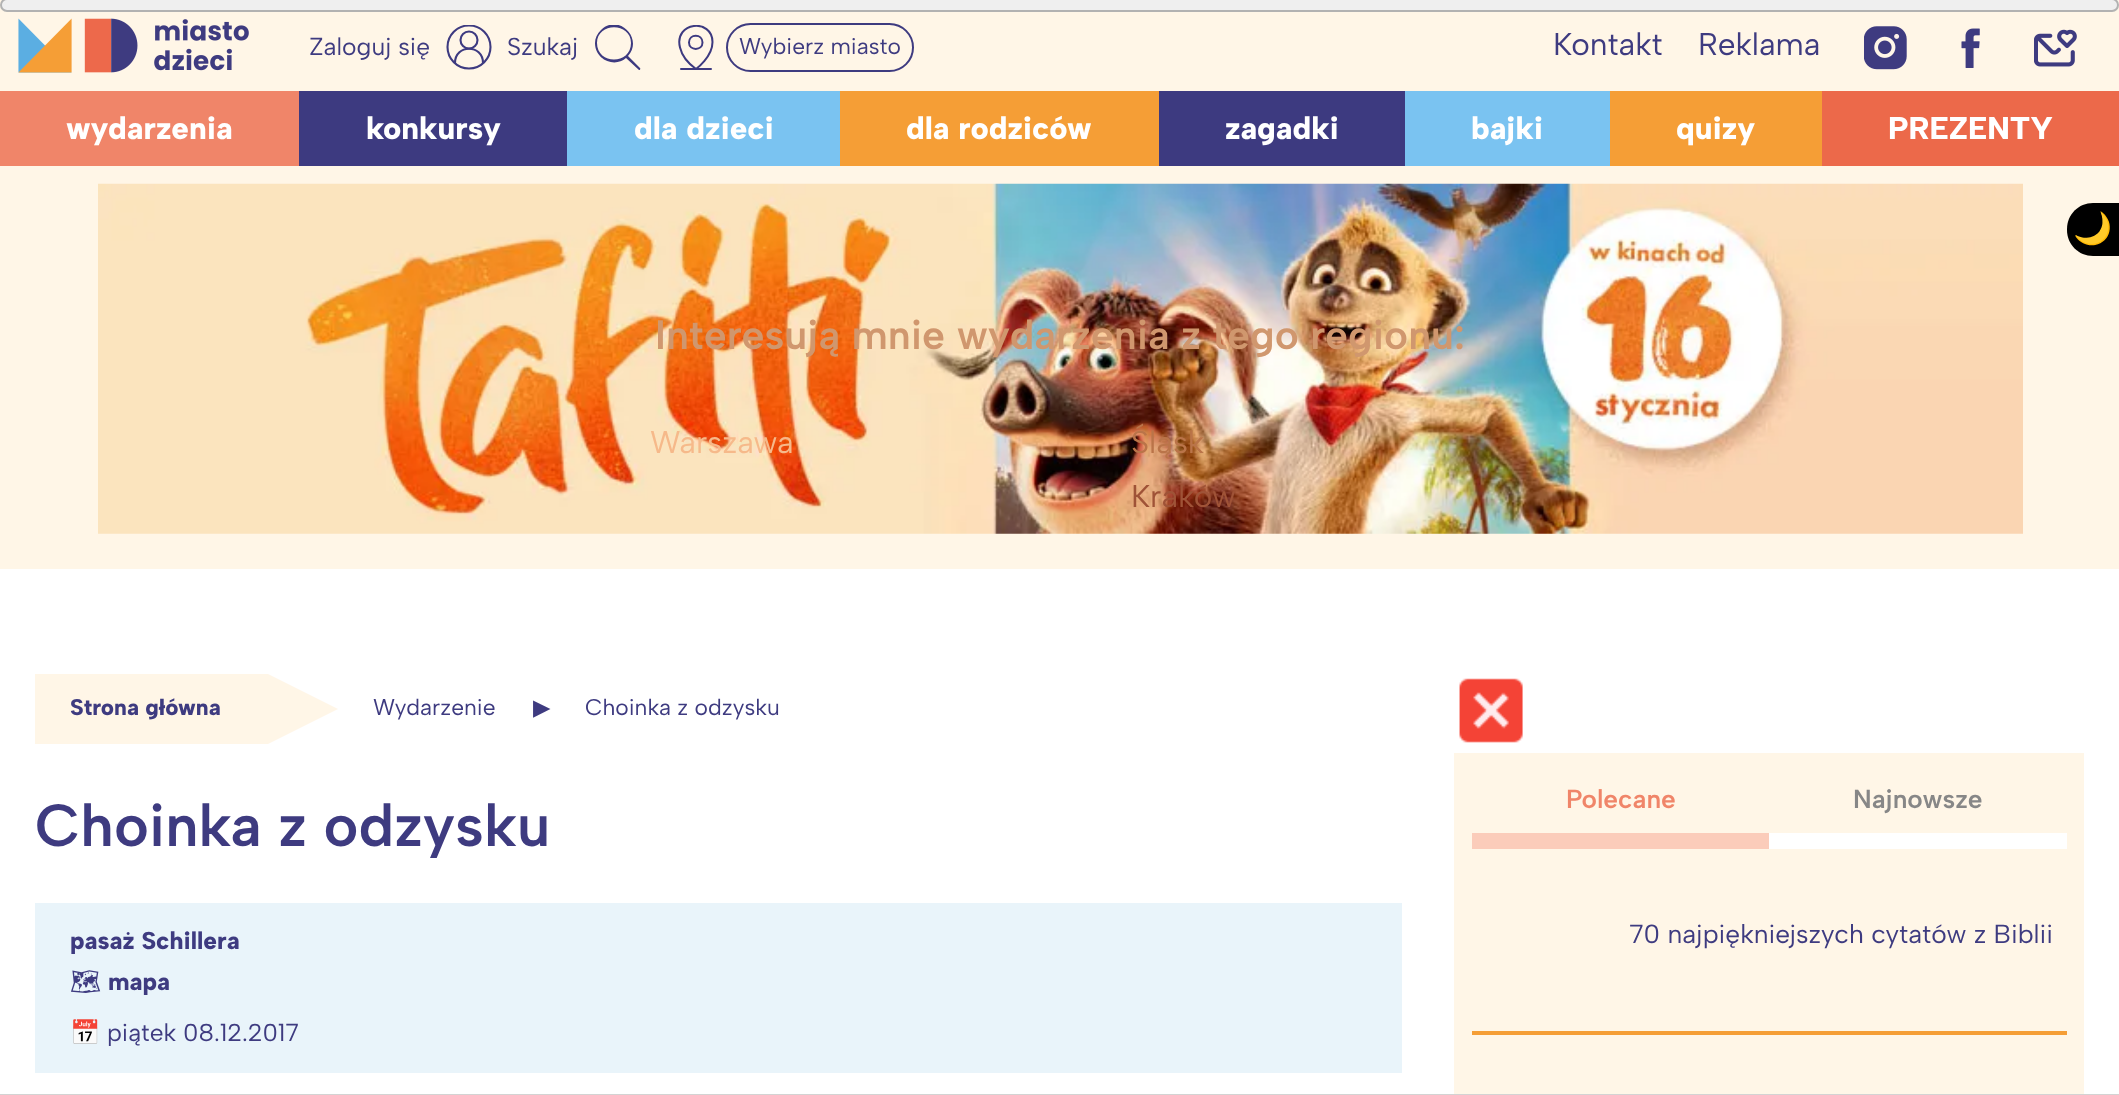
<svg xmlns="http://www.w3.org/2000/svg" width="2119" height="1095">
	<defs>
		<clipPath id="clip1"><rect x="446" y="25" width="46" height="45" /></clipPath>
		<clipPath id="clip2"><rect x="595" y="25" width="46" height="45" /></clipPath>
		<clipPath id="clip3"><rect x="672" y="25" width="46" height="45" /></clipPath>
	</defs>
	<rect width="100%" height="100%" fill="#FFFFFF" />
	<rect x="0" y="0" width="2119" height="569" fill="#FFF6E7" />
	<rect x="1" y="-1" width="2117" height="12" rx="6" fill="#EFEFEF" stroke="#B2B2B2" stroke-width="2" />
	<image x="18" y="18" width="231" height="55" href="assets/img1.png" />
	<g clip-path="url(#clip1)">
		<circle cx="469" cy="47" r="21.5" fill="none" stroke="#3D3A80" stroke-width="2.1" />
	</g>
	<text x="309" y="55" font-family="Albert Sans" font-size="24.5" fill="#3E3B80">Zaloguj się</text>
	<path d="M483 63C483 44 455 44 455 63" fill="none" stroke="#3D3A80" stroke-width="2.1" stroke-linejoin="round" />
	<circle cx="469" cy="40" r="8.5" fill="none" stroke="#3D3A80" stroke-width="2.1" />
	<text x="507" y="55" font-family="Albert Sans" font-size="24.5" fill="#3E3B80">Szukaj</text>
	<g clip-path="url(#clip2)">
		<path d="M595 43C595 60 615 68 626 58L639 70C639 71 641 69 640 68L628 56C644 38 618 13 601 30C597 34 595 38 595 43ZM631 43C631 65 597 65 597 43C597 22 631 22 631 43Z" fill="#3D3A80" />
	</g>
	<path d="M681 69H711M702.5 42.5C702.5 51 689 51 689 42.5C689 33.5 702.5 33.5 702.5 42.5Z" fill="none" stroke="#3D3A80" stroke-width="2" stroke-linecap="round" stroke-linejoin="round" />
	<g clip-path="url(#clip3)">
		<path d="M712.5 42C712.5 57 696 69 696 69C689 64 682 56 680 47.5C673.5 21.5 712.5 18 712.5 42Z" fill="none" stroke="#3D3A80" stroke-width="2" stroke-linecap="round" stroke-linejoin="round" />
	</g>
	<rect x="727" y="24" width="186" height="47" rx="23.5" fill="none" stroke="#3E3B80" stroke-width="2" />
	<text x="739" y="54" font-family="Albert Sans" font-size="22.75" fill="#3E3B80">Wybierz miasto</text>
	<g font-family="Albert Sans" font-size="31.5" fill="#3E3B80">
		<text x="1553" y="55">Kontakt</text>
		<text x="1698" y="55">Reklama</text>
	</g>
	<image x="1864" y="26" width="43" height="44" href="assets/img2.png" />
	<image x="1961" y="28" width="19" height="40" href="assets/img3.png" />
	<image x="2034" y="29" width="43" height="38" href="assets/img4.png" />
	<rect x="0" y="91" width="299" height="75" fill="#F08569" />
	<text x="66" y="139" font-family="Albert Sans" font-size="31.5" font-weight="800" fill="#FFFFFF">wydarzenia</text>
	<rect x="299" y="91" width="268" height="75" fill="#3D3A80" />
	<text x="366" y="139" font-family="Albert Sans" font-size="31.5" font-weight="800" fill="#FFFFFF">konkursy</text>
	<rect x="567" y="91" width="273" height="75" fill="#7AC3F1" />
	<text x="634" y="139" font-family="Albert Sans" font-size="31.5" font-weight="800" fill="#FFFFFF">dla dzieci</text>
	<rect x="840" y="91" width="319" height="75" fill="#F59E36" />
	<text x="906" y="139" font-family="Albert Sans" font-size="31.5" font-weight="800" fill="#FFFFFF">dla rodziców</text>
	<rect x="1159" y="91" width="246" height="75" fill="#3D3A80" />
	<text x="1225" y="139" font-family="Albert Sans" font-size="31.5" font-weight="800" fill="#FFFFFF">zagadki</text>
	<rect x="1405" y="91" width="205" height="75" fill="#7AC3F1" />
	<text x="1471" y="139" font-family="Albert Sans" font-size="31.5" font-weight="800" fill="#FFFFFF">bajki</text>
	<rect x="1610" y="91" width="212" height="75" fill="#F59E36" />
	<text x="1676" y="139" font-family="Albert Sans" font-size="31.5" font-weight="800" fill="#FFFFFF">quizy</text>
	<rect x="1822" y="91" width="297" height="75" fill="#EC694A" />
	<text x="1888" y="139" font-family="Albert Sans" font-size="31.5" font-weight="800" fill="#FFFFFF">PREZENTY</text>
	<image x="98" y="183" width="1925" height="351" href="assets/img5.png" />
	<path d="M2093 203H2119V256H2093C2078.5 256 2067 244.5 2067 230V229C2067 214.5 2078.5 203 2093 203Z" fill="#000000" />
	<text x="2073" y="239" font-family="'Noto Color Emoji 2'" font-size="31.5" fill="#FFFFFF">🌙</text>
	<rect x="35" y="674" width="233" height="70" fill="#FFF6E7" />
	<text x="70" y="715" font-family="Albert Sans" font-size="22.75" font-weight="800" fill="#3E3B80">Strona główna</text>
	<path d="M268 744V674L338 709Z" fill="#FFF6E7" />
	<text x="373" y="715" font-family="Albert Sans" font-size="22.75" fill="#3E3B80">Wydarzenie</text>
	<text x="533" y="715" font-family="DejaVu Sans" font-size="22.75" fill="#3E3B80">▶</text>
	<text x="585" y="715" font-family="Albert Sans" font-size="22.75" fill="#3E3B80">Choinka z odzysku</text>
	<text x="35" y="846" font-family="Albert Sans" font-size="59.5" font-weight="600" fill="#3E3B80">Choinka z odzysku</text>
	<rect x="35" y="903" width="1367" height="170" fill="#E9F4FA" />
	<text x="70" y="949" font-family="Albert Sans" font-size="24.5" font-weight="800" fill="#3E3B80">pasaż Schillera</text>
	<text x="70" y="990" font-family="Noto Emoji" font-size="24.5" font-weight="700" fill="#3E3B80">🗺</text>
	<text x="108" y="990" font-family="Albert Sans" font-size="24.5" font-weight="800" fill="#3E3B80">mapa</text>
	<text x="70" y="1041" font-family="Noto Color Emoji" font-size="24.5" fill="#3E3B80">📅</text>
	<text x="107" y="1041" font-family="Albert Sans" font-size="24.5" fill="#3E3B80">piątek 08.12.2017</text>
	<rect x="1454" y="753" width="630" height="341" fill="#FFF6E7" />
	<text x="1566" y="808" font-family="Albert Sans" font-size="26.25" font-weight="600" fill="#F08569">Polecane</text>
	<rect x="1472" y="833" width="297" height="16" fill="#FBCCBA" />
	<text x="1853" y="808" font-family="Albert Sans" font-size="26.25" font-weight="600" fill="#878787">Najnowsze</text>
	<rect x="1769" y="833" width="298" height="16" fill="#FFFFFF" />
	<rect x="1472" y="1031" width="595" height="4" fill="#F59E36" />
	<text x="1629" y="943" font-family="Albert Sans" font-size="26.25" fill="#3E3B80">70 najpiękniejszych cytatów z Biblii</text>
	<rect x="0" y="1094" width="2119" height="1" fill="#D3D3D3" />
	<text x="655" y="349" font-family="Albert Sans" font-size="41" font-weight="600" fill="#D0976E">Interesują mnie wydarzenia z tego regionu:</text>
	<text x="650" y="453" font-family="Albert Sans" font-size="31.5" fill="#F6B98A">Warszawa</text>
	<text x="1131" y="453" font-family="Albert Sans" font-size="31.5" fill="#BA7449">Śląsk</text>
	<text x="1131" y="507" font-family="Albert Sans" font-size="31.5" fill="#9F5337">Kraków</text>
	<image x="1459" y="678" width="64" height="65" href="assets/img6.png" />
</svg>
